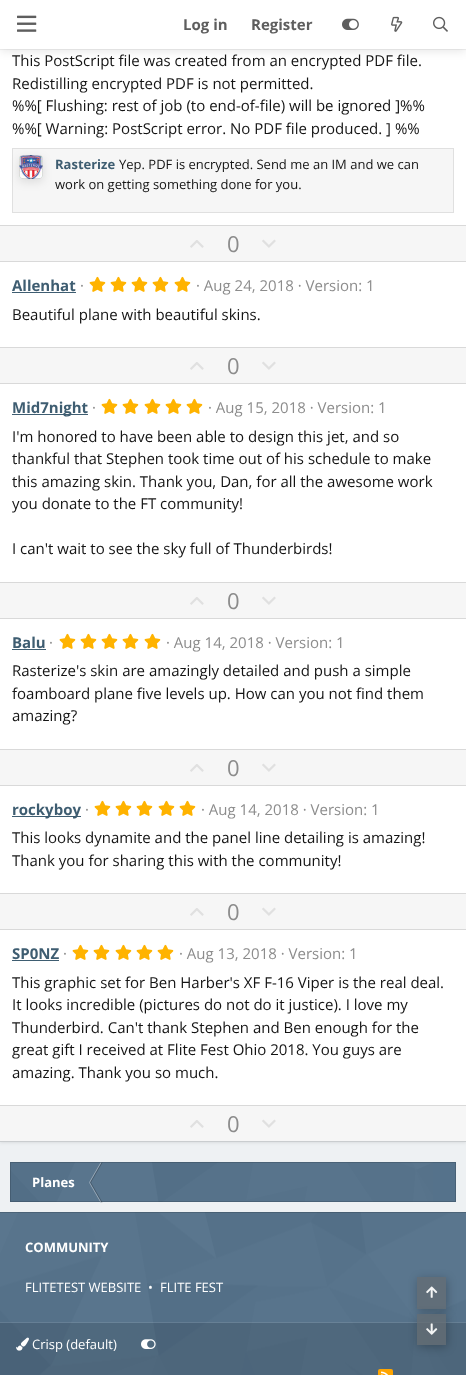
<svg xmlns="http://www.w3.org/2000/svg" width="466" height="1375">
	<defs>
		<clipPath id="clip1"><path d="M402 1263H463V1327H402ZM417 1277H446V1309H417Z" clip-rule="evenodd" /></clipPath>
		<clipPath id="clip2"><path d="M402 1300H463V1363H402ZM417 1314H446V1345H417Z" clip-rule="evenodd" /></clipPath>
	</defs>
	<rect width="100%" height="100%" fill="#55728B" />
	<rect x="0" y="1142" width="466" height="70" fill="#EEF1F3" />
	<rect x="0" y="-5" width="466" height="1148" fill="#000000" fill-opacity="0.08" filter="blur(1.5px)" />
	<rect x="0" y="49" width="466" height="1" fill="#F2F2F2" />
	<rect x="0" y="50" width="466" height="1055" fill="#FFFFFF" />
	<rect x="0" y="2" width="466" height="49" fill="#000000" fill-opacity="0.1" filter="blur(5px)" />
	<rect x="0" y="0" width="466" height="49" fill="#FFFFFF" />
	<image x="17" y="15" width="20" height="17" href="assets/img1.png" />
	<g font-family="Open Sans" font-size="15" font-weight="700" fill="#5E5E5E">
		<text x="183" y="30">Log in</text>
		<text x="251" y="30">Register</text>
	</g>
	<image x="342" y="18" width="17" height="12" href="assets/img2.png" />
	<image x="391" y="16" width="12" height="16" href="assets/img3.png" />
	<image x="433" y="16" width="15" height="16" href="assets/img4.png" />
	<rect x="0" y="1141" width="466" height="1" fill="#CACDCF" />
	<g font-family="Open Sans" font-size="15" fill="#141414">
		<text x="12" y="66">This PostScript file was created from an encrypted PDF file.</text>
		<text x="12" y="89">Redistilling encrypted PDF is not permitted.</text>
		<text x="12" y="111">%%[ Flushing: rest of job (to end-of-file) will be ignored ]%%</text>
		<text x="12" y="134">%%[ Warning: PostScript error. No PDF file produced. ] %%</text>
	</g>
	<rect x="12.5" y="148.5" width="441" height="64" fill="#F6F6F6" stroke="#E0E0E0" />
	<rect x="19" y="158" width="24" height="24" rx="3" fill="#000000" fill-opacity="0.1" filter="blur(5px)" />
	<rect x="19" y="155" width="24" height="24" rx="3" fill="#FFFFFF" />
	<image x="19" y="155" width="24" height="24" href="assets/img5.png" />
	<rect x="19.5" y="155.5" width="23" height="23" rx="2.5" fill="none" stroke="#141414" stroke-opacity="0.15" />
	<text x="55" y="169" font-family="Open Sans" font-size="13" font-weight="700" fill="#3E5D71">Rasterize</text>
	<g font-family="Open Sans" font-size="13" fill="#141414">
		<text x="119" y="169">Yep. PDF is encrypted. Send me an IM and we can</text>
		<text x="55" y="189">work on getting something done for you.</text>
	</g>
	<rect x="0" y="226" width="466" height="35" fill="#F6F6F6" />
	<rect x="0" y="225" width="466" height="1" fill="#D9D9D9" />
	<image x="190" y="240" width="14" height="8" href="assets/img6.png" />
	<text x="227" y="252" font-family="Open Sans" font-size="22" fill="#8C8C8C">0</text>
	<image x="262" y="239" width="14" height="9" href="assets/img7.png" />
	<rect x="0" y="261" width="466" height="1" fill="#D9D9D9" />
	<text x="12" y="291" font-family="Open Sans" font-size="15" font-weight="700" fill="#3E5D71">Allenhat</text>
	<rect x="12" y="292" width="64" height="1" fill="#3E5D71" />
	<text x="80" y="291" font-family="Open Sans" font-size="15" fill="#8C8C8C">·</text>
	<image x="89" y="276" width="17" height="16" href="assets/img8.png" />
	<image x="110" y="276" width="17" height="16" href="assets/img8.png" />
	<image x="131" y="276" width="17" height="16" href="assets/img8.png" />
	<image x="152" y="276" width="17" height="16" href="assets/img8.png" />
	<image x="174" y="276" width="17" height="16" href="assets/img8.png" />
	<text x="196" y="291" font-family="Open Sans" font-size="15" fill="#8C8C8C">· Aug 24, 2018 · Version: 1</text>
	<text x="12" y="320" font-family="Open Sans" font-size="15" fill="#141414">Beautiful plane with beautiful skins.</text>
	<rect x="0" y="348" width="466" height="35" fill="#F6F6F6" />
	<rect x="0" y="347" width="466" height="1" fill="#D9D9D9" />
	<image x="190" y="362" width="14" height="8" href="assets/img6.png" />
	<text x="227" y="374" font-family="Open Sans" font-size="22" fill="#8C8C8C">0</text>
	<image x="262" y="361" width="14" height="9" href="assets/img7.png" />
	<rect x="0" y="383" width="466" height="1" fill="#D9D9D9" />
	<rect x="12" y="414" width="76" height="1" fill="#3E5D71" />
	<text x="12" y="413" font-family="Open Sans" font-size="15" font-weight="700" fill="#3E5D71">Mid7night</text>
	<text x="92" y="413" font-family="Open Sans" font-size="15" fill="#8C8C8C">·</text>
	<image x="101" y="398" width="17" height="16" href="assets/img8.png" />
	<image x="122" y="398" width="17" height="16" href="assets/img8.png" />
	<image x="144" y="398" width="17" height="16" href="assets/img8.png" />
	<image x="165" y="398" width="17" height="16" href="assets/img8.png" />
	<image x="186" y="398" width="17" height="16" href="assets/img8.png" />
	<text x="208" y="413" font-family="Open Sans" font-size="15" fill="#8C8C8C">· Aug 15, 2018 · Version: 1</text>
	<g font-family="Open Sans" font-size="15" fill="#141414">
		<text x="12" y="442">I'm honored to have been able to design this jet, and so</text>
		<text x="12" y="464">thankful that Stephen took time out of his schedule to make</text>
		<text x="12" y="487">this amazing skin. Thank you, Dan, for all the awesome work</text>
		<text x="12" y="509">you donate to the FT community!</text>
		<text x="12" y="554">I can't wait to see the sky full of Thunderbirds!</text>
	</g>
	<rect x="0" y="583" width="466" height="35" fill="#F6F6F6" />
	<rect x="0" y="582" width="466" height="1" fill="#D9D9D9" />
	<image x="190" y="597" width="14" height="8" href="assets/img6.png" />
	<text x="227" y="609" font-family="Open Sans" font-size="22" fill="#8C8C8C">0</text>
	<image x="262" y="596" width="14" height="9" href="assets/img7.png" />
	<rect x="0" y="618" width="466" height="1" fill="#D9D9D9" />
	<text x="12" y="648" font-family="Open Sans" font-size="15" font-weight="700" fill="#3E5D71">Balu</text>
	<rect x="12" y="649" width="34" height="1" fill="#3E5D71" />
	<text x="49" y="648" font-family="Open Sans" font-size="15" fill="#8C8C8C">·</text>
	<image x="59" y="633" width="17" height="16" href="assets/img8.png" />
	<image x="80" y="633" width="17" height="16" href="assets/img8.png" />
	<image x="101" y="633" width="17" height="16" href="assets/img8.png" />
	<image x="122" y="633" width="17" height="16" href="assets/img8.png" />
	<image x="144" y="633" width="17" height="16" href="assets/img8.png" />
	<text x="166" y="648" font-family="Open Sans" font-size="15" fill="#8C8C8C">· Aug 14, 2018 · Version: 1</text>
	<g font-family="Open Sans" font-size="15" fill="#141414">
		<text x="12" y="676">Rasterize's skin are amazingly detailed and push a simple</text>
		<text x="12" y="699">foamboard plane five levels up. How can you not find them</text>
		<text x="12" y="721">amazing?</text>
	</g>
	<rect x="0" y="750" width="466" height="35" fill="#F6F6F6" />
	<rect x="0" y="749" width="466" height="1" fill="#D9D9D9" />
	<image x="190" y="764" width="14" height="8" href="assets/img6.png" />
	<text x="227" y="776" font-family="Open Sans" font-size="22" fill="#8C8C8C">0</text>
	<image x="262" y="763" width="14" height="9" href="assets/img7.png" />
	<rect x="0" y="785" width="466" height="1" fill="#D9D9D9" />
	<rect x="12" y="816" width="69" height="1" fill="#3E5D71" />
	<text x="12" y="815" font-family="Open Sans" font-size="15" font-weight="700" fill="#3E5D71">rockyboy</text>
	<text x="85" y="815" font-family="Open Sans" font-size="15" fill="#8C8C8C">·</text>
	<image x="94" y="800" width="17" height="16" href="assets/img8.png" />
	<image x="115" y="800" width="17" height="16" href="assets/img8.png" />
	<image x="136" y="800" width="17" height="16" href="assets/img8.png" />
	<image x="158" y="800" width="17" height="16" href="assets/img8.png" />
	<image x="179" y="800" width="17" height="16" href="assets/img8.png" />
	<text x="201" y="815" font-family="Open Sans" font-size="15" fill="#8C8C8C">· Aug 14, 2018 · Version: 1</text>
	<g font-family="Open Sans" font-size="15" fill="#141414">
		<text x="12" y="843">This looks dynamite and the panel line detailing is amazing!</text>
		<text x="12" y="866">Thank you for sharing this with the community!</text>
	</g>
	<rect x="0" y="894" width="466" height="35" fill="#F6F6F6" />
	<rect x="0" y="893" width="466" height="1" fill="#D9D9D9" />
	<image x="190" y="908" width="14" height="8" href="assets/img6.png" />
	<text x="227" y="920" font-family="Open Sans" font-size="22" fill="#8C8C8C">0</text>
	<image x="262" y="907" width="14" height="9" href="assets/img7.png" />
	<rect x="0" y="929" width="466" height="1" fill="#D9D9D9" />
	<text x="12" y="959" font-family="Open Sans" font-size="15" font-weight="700" fill="#3E5D71">SP0NZ</text>
	<rect x="12" y="960" width="47" height="1" fill="#3E5D71" />
	<text x="63" y="959" font-family="Open Sans" font-size="15" fill="#8C8C8C">·</text>
	<image x="72" y="944" width="17" height="16" href="assets/img8.png" />
	<image x="93" y="944" width="17" height="16" href="assets/img8.png" />
	<image x="115" y="944" width="17" height="16" href="assets/img8.png" />
	<image x="136" y="944" width="17" height="16" href="assets/img8.png" />
	<image x="157" y="944" width="17" height="16" href="assets/img8.png" />
	<text x="179" y="959" font-family="Open Sans" font-size="15" fill="#8C8C8C">· Aug 13, 2018 · Version: 1</text>
	<g font-family="Open Sans" font-size="15" fill="#141414">
		<text x="12" y="988">This graphic set for Ben Harber's XF F-16 Viper is the real deal.</text>
		<text x="12" y="1010">It looks incredible (pictures do not do it justice). I love my</text>
		<text x="12" y="1033">Thunderbird. Can't thank Stephen and Ben enough for the</text>
		<text x="12" y="1055">great gift I received at Flite Fest Ohio 2018. You guys are</text>
		<text x="12" y="1078">amazing. Thank you so much.</text>
	</g>
	<rect x="0" y="1106" width="466" height="35" fill="#F6F6F6" />
	<rect x="0" y="1105" width="466" height="1" fill="#D9D9D9" />
	<image x="190" y="1120" width="14" height="8" href="assets/img6.png" />
	<text x="227" y="1132" font-family="Open Sans" font-size="22" fill="#8C8C8C">0</text>
	<image x="262" y="1119" width="14" height="9" href="assets/img7.png" />
	<rect x="10" y="1162" width="446" height="40" fill="#55728B" />
	<image x="10" y="1162" width="423" height="40" href="assets/img9.png" />
	<path d="M100.5 1162.5H101.5L90 1182.5H89Z" fill="#9CACBB" />
	<path d="M101.5 1162.5H102.5L91 1182.5H90Z" fill="#000000" fill-opacity="0.25" />
	<path d="M89 1182.5H90L101.5 1202.5H100.5Z" fill="#9CACBB" />
	<path d="M90 1182.5H91L102.5 1202.5H101.5Z" fill="#000000" fill-opacity="0.25" />
	<rect x="10.5" y="1162.5" width="445" height="39" fill="none" stroke="#000000" stroke-opacity="0.15" />
	<text x="32" y="1187" font-family="Open Sans" font-size="13" font-weight="700" fill="#FFFFFF">Planes</text>
	<image x="0" y="1212" width="466" height="163" href="assets/img10.png" />
	<rect x="0" y="1212" width="466" height="1" fill="#000000" fill-opacity="0.15" />
	<rect x="0" y="1322" width="466" height="1" fill="#FFFFFF" fill-opacity="0.1" />
	<text x="25" y="1252" font-family="Open Sans" font-size="13" font-weight="700" fill="#FFFFFF">COMMUNITY</text>
	<g font-family="Open Sans" font-size="13" fill="#FFFFFF">
		<text x="25" y="1292">FLITETEST WEBSITE</text>
		<text x="148" y="1292">•</text>
		<text x="160" y="1292">FLITE FEST</text>
	</g>
	<rect x="0" y="1323" width="466" height="52" fill="#000000" fill-opacity="0.1" />
	<image x="16" y="1337" width="13" height="14" href="assets/img11.png" />
	<text x="32" y="1349" font-family="Open Sans" font-size="13" fill="#FFFFFF">Crisp (default)</text>
	<image x="141" y="1339" width="15" height="10" href="assets/img12.png" />
	<rect x="378" y="1369" width="15" height="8" rx="2" fill="#FFA500" />
	<image x="381" y="1371" width="7" height="4" href="assets/img13.png" />
	<g clip-path="url(#clip1)">
		<rect x="418" y="1279" width="29" height="32" fill="#000000" fill-opacity="0.25" filter="blur(5px)" />
	</g>
	<rect x="417" y="1277" width="29" height="32" fill="#646C71" fill-opacity="0.75" />
	<image x="426" y="1286" width="12" height="12" href="assets/img14.png" />
	<g clip-path="url(#clip2)">
		<rect x="418" y="1316" width="29" height="31" fill="#000000" fill-opacity="0.25" filter="blur(5px)" />
	</g>
	<rect x="417" y="1314" width="29" height="31" fill="#646C71" fill-opacity="0.75" />
	<image x="426" y="1323" width="12" height="12" href="assets/img15.png" />
</svg>
